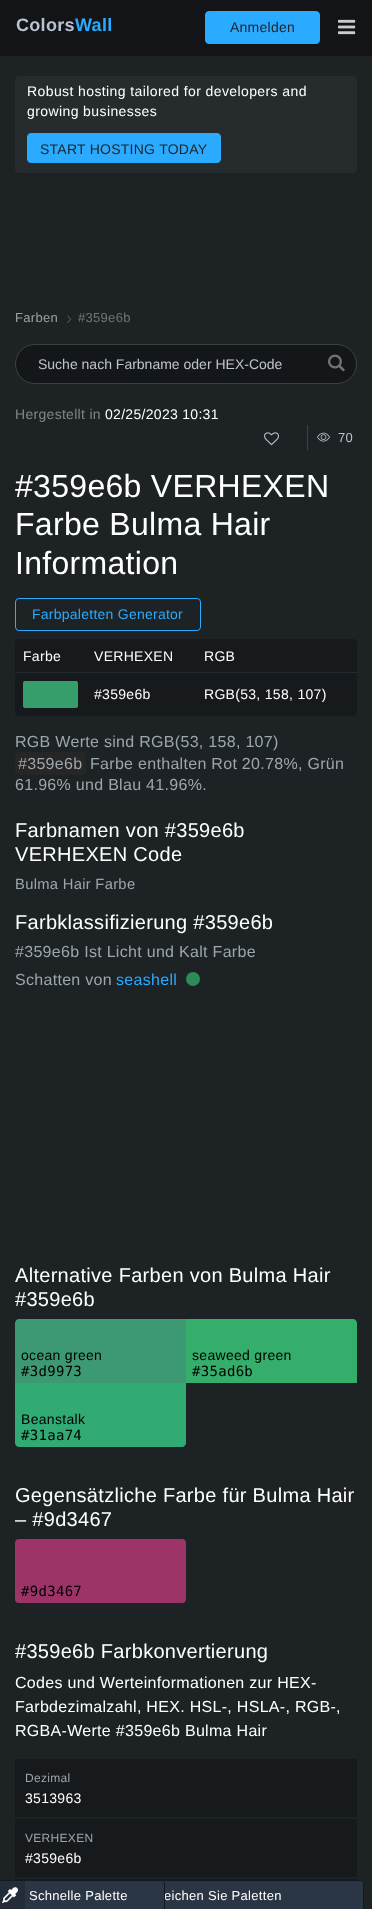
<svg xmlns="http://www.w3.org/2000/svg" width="372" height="1909">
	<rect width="100%" height="100%" fill="#1D2225" />
	<rect x="-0.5" y="-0.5" width="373" height="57" fill="none" stroke="#1B2022" />
	<rect x="0" y="0" width="372" height="56" fill="#121417" />
	<text x="16" y="31" font-family="Liberation Sans" font-size="18" font-weight="700" letter-spacing="0.3" fill="#B9C3D0">Colors</text>
	<text x="75" y="31" font-family="Liberation Sans" font-size="18" font-weight="700" letter-spacing="0.3" fill="#2BABFF">Wall</text>
	<rect x="205.5" y="11.5" width="114" height="32" rx="3.5" fill="#2BABFF" stroke="#2BABFF" />
	<text x="230" y="32" font-family="Liberation Sans" font-size="14" letter-spacing="0.25" fill="#212529">Anmelden</text>
	<image x="338" y="19" width="18" height="16" href="assets/img1.png" />
	<rect x="15" y="76" width="342" height="97" rx="4" fill="#262B2E" />
	<g font-family="Liberation Sans" font-size="14" letter-spacing="0.4" fill="#FFFFFF">
		<text x="27" y="96">Robust hosting tailored for developers and</text>
		<text x="27" y="116">growing businesses</text>
	</g>
	<rect x="27.5" y="133.5" width="193" height="29" rx="3.5" fill="#2BABFF" stroke="#2BABFF" />
	<text x="40" y="154" font-family="Liberation Sans" font-size="14" letter-spacing="0.25" fill="#212529">START HOSTING TODAY</text>
	<text x="15" y="322" font-family="Liberation Sans" font-size="13" letter-spacing="0.3" fill="#A0A0A0">Farben</text>
	<image x="67" y="315" width="4" height="8" href="assets/img2.png" />
	<text x="78" y="322" font-family="Liberation Sans" font-size="13" letter-spacing="0.3" fill="#757474">#359e6b</text>
	<rect x="15.5" y="344.5" width="341" height="39" rx="19.5" fill="#14171A" stroke="#404040" />
	<text x="38" y="369" font-family="Liberation Sans" font-size="14" fill="#C0C4CC">Suche nach Farbname oder HEX-Code</text>
	<image x="328" y="354" width="17" height="18" href="assets/img3.png" />
	<text x="15" y="419" font-family="Liberation Sans" font-size="14" letter-spacing="0.3" fill="#868585">Hergestellt in</text>
	<text x="105" y="419" font-family="Liberation Sans" font-size="14" letter-spacing="0.3" fill="#FFFFFF">02/25/2023 10:31</text>
	<image x="264" y="432" width="15" height="14" href="assets/img4.png" />
	<rect x="307" y="425" width="1" height="25" fill="#3F4346" />
	<image x="317" y="432" width="13" height="10" href="assets/img5.png" />
	<text x="338" y="442" font-family="Liberation Sans" font-size="13" letter-spacing="0.3" fill="#B9C3D0">70</text>
	<g font-family="Liberation Sans" font-size="32" letter-spacing="0.3" fill="#FFFFFF">
		<text x="15" y="497">#359e6b VERHEXEN</text>
		<text x="15" y="535">Farbe Bulma Hair</text>
		<text x="15" y="574">Information</text>
	</g>
	<rect x="15.5" y="598.5" width="185" height="32" rx="3.5" fill="none" stroke="#2BABFF" />
	<text x="32" y="619" font-family="Liberation Sans" font-size="14" letter-spacing="0.25" fill="#2BABFF">Farbpaletten Generator</text>
	<rect x="15" y="639" width="342" height="77" rx="4" fill="#161A1C" />
	<g font-family="Liberation Sans" font-size="14" letter-spacing="0.3" fill="#FFFFFF">
		<text x="23" y="661">Farbe</text>
		<text x="94" y="661">VERHEXEN</text>
		<text x="204" y="661">RGB</text>
	</g>
	<rect x="23" y="681" width="55" height="27" rx="2" fill="#359E6B" />
	<text x="94" y="699" font-family="Liberation Sans" font-size="14" letter-spacing="0.3" fill="#FFFFFF">#359e6b</text>
	<rect x="15" y="672" width="343" height="1" fill="#242A2E" />
	<text x="204" y="699" font-family="Liberation Sans" font-size="14" letter-spacing="0.3" fill="#FFFFFF">RGB(53, 158, 107)</text>
	<text x="15" y="747" font-family="Liberation Sans" font-size="16" letter-spacing="0.3" fill="#9DA6AE">RGB Werte sind RGB(53, 158, 107)</text>
	<rect x="15" y="752" width="71" height="23" rx="4" fill="#262626" />
	<g font-family="Liberation Sans" font-size="16" letter-spacing="0.3" fill="#9DA6AE">
		<text x="18" y="769">#359e6b</text>
		<text x="90" y="769">Farbe enthalten Rot 20.78%, Grün</text>
		<text x="15" y="790">61.96% und Blau 41.96%.</text>
	</g>
	<g font-family="Liberation Sans" font-size="20" letter-spacing="0.3" fill="#FFFFFF">
		<text x="15" y="837">Farbnamen von #359e6b</text>
		<text x="15" y="861">VERHEXEN Code</text>
	</g>
	<text x="15" y="889" font-family="Liberation Sans" font-size="14.75" letter-spacing="0.3" fill="#9DA6AE">Bulma Hair Farbe</text>
	<text x="15" y="929" font-family="Liberation Sans" font-size="20" letter-spacing="0.3" fill="#FFFFFF">Farbklassifizierung #359e6b</text>
	<g font-family="Liberation Sans" font-size="16" letter-spacing="0.3" fill="#9DA6AE">
		<text x="15" y="957">#359e6b Ist Licht und Kalt Farbe</text>
		<text x="15" y="985">Schatten von</text>
	</g>
	<text x="116" y="985" font-family="Liberation Sans" font-size="16" letter-spacing="0.3" fill="#2BABFF">seashell</text>
	<circle cx="193" cy="979" r="7" fill="#2E8B57" />
	<g font-family="Liberation Sans" font-size="20" letter-spacing="0.3" fill="#FFFFFF">
		<text x="15" y="1282">Alternative Farben von Bulma Hair</text>
		<text x="15" y="1306">#359e6b</text>
	</g>
	<path d="M19 1319H186V1383H15V1323C15 1321 17 1319 19 1319Z" fill="#3D9973" />
	<text x="21" y="1360" font-family="Liberation Sans" font-size="14" letter-spacing="0.3" fill="#000000">ocean green</text>
	<text x="21" y="1376" font-family="DejaVu Sans Mono" font-size="14" letter-spacing="0.3" fill="#000000">#3d9973</text>
	<path d="M186 1319H353C355 1319 357 1321 357 1323V1383H186Z" fill="#35AD6B" />
	<text x="192" y="1360" font-family="Liberation Sans" font-size="14" letter-spacing="0.3" fill="#000000">seaweed green</text>
	<text x="192" y="1376" font-family="DejaVu Sans Mono" font-size="14" letter-spacing="0.3" fill="#000000">#35ad6b</text>
	<path d="M15 1383H186V1443C186 1445 184 1447 182 1447H19C17 1447 15 1445 15 1443Z" fill="#31AA74" />
	<text x="21" y="1424" font-family="Liberation Sans" font-size="14" letter-spacing="0.3" fill="#000000">Beanstalk</text>
	<text x="21" y="1440" font-family="DejaVu Sans Mono" font-size="14" letter-spacing="0.3" fill="#000000">#31aa74</text>
	<g font-family="Liberation Sans" font-size="20" letter-spacing="0.3" fill="#FFFFFF">
		<text x="15" y="1502">Gegensätzliche Farbe für Bulma Hair</text>
		<text x="15" y="1526">– #9d3467</text>
	</g>
	<rect x="15" y="1539" width="171" height="64" rx="4" fill="#9D3467" />
	<text x="21" y="1596" font-family="DejaVu Sans Mono" font-size="14" letter-spacing="0.3" fill="#000000">#9d3467</text>
	<text x="15" y="1658" font-family="Liberation Sans" font-size="20" letter-spacing="0.3" fill="#FFFFFF">#359e6b Farbkonvertierung</text>
	<g font-family="Liberation Sans" font-size="16" letter-spacing="0.3" fill="#FFFFFF">
		<text x="15" y="1688">Codes und Werteinformationen zur HEX-</text>
		<text x="15" y="1712">Farbdezimalzahl, HEX. HSL-, HSLA-, RGB-,</text>
		<text x="15" y="1736">RGBA-Werte #359e6b Bulma Hair</text>
	</g>
	<rect x="15" y="1759" width="342" height="58" rx="2" fill="#161A1C" />
	<text x="25" y="1782" font-family="Liberation Sans" font-size="12" letter-spacing="0.3" fill="#9DA6AE">Dezimal</text>
	<text x="25" y="1803" font-family="Liberation Sans" font-size="14" letter-spacing="0.3" fill="#FFFFFF">3513963</text>
	<rect x="15" y="1819" width="342" height="58" rx="2" fill="#161A1C" />
	<text x="25" y="1842" font-family="Liberation Sans" font-size="12" letter-spacing="0.3" fill="#9DA6AE">VERHEXEN</text>
	<text x="25" y="1863" font-family="Liberation Sans" font-size="14" letter-spacing="0.3" fill="#FFFFFF">#359e6b</text>
	<rect x="15" y="1879" width="342" height="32" rx="2" fill="#161A1C" />
	<path d="M128 1880H360C362 1880 364 1882 364 1884V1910H124V1884C124 1882 126 1880 128 1880Z" fill="#2B3645" />
	<path d="M128 1880H360C362 1880 364 1882 364 1884V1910H124V1884C124 1882 126 1880 128 1880ZM128 1881H360C362 1881 363 1882 363 1884V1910H125V1884C125 1882 126 1881 128 1881Z" fill="#151A22" fill-rule="evenodd" />
	<text x="164" y="1900" font-family="Liberation Sans" font-size="13" letter-spacing="0.3" fill="#FFFFFF">eichen Sie Paletten</text>
	<path d="M0 1880H161C163 1880 165 1882 165 1884V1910H-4V1884C-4 1882-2 1880 0 1880Z" fill="#2B3645" />
	<path d="M-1 1880H161C163 1880 165 1882 165 1884V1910H-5V1884C-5 1882-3 1880-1 1880ZM-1 1881H161C163 1881 164 1882 164 1884V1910H-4V1884C-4 1882-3 1881-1 1881Z" fill="#151A22" fill-rule="evenodd" />
	<rect x="0" y="1881" width="25" height="28" fill="#232C38" />
	<image x="2" y="1887" width="16" height="17" href="assets/img6.png" />
	<text x="29" y="1900" font-family="Liberation Sans" font-size="13" letter-spacing="0.3" fill="#FFFFFF">Schnelle Palette</text>
</svg>
